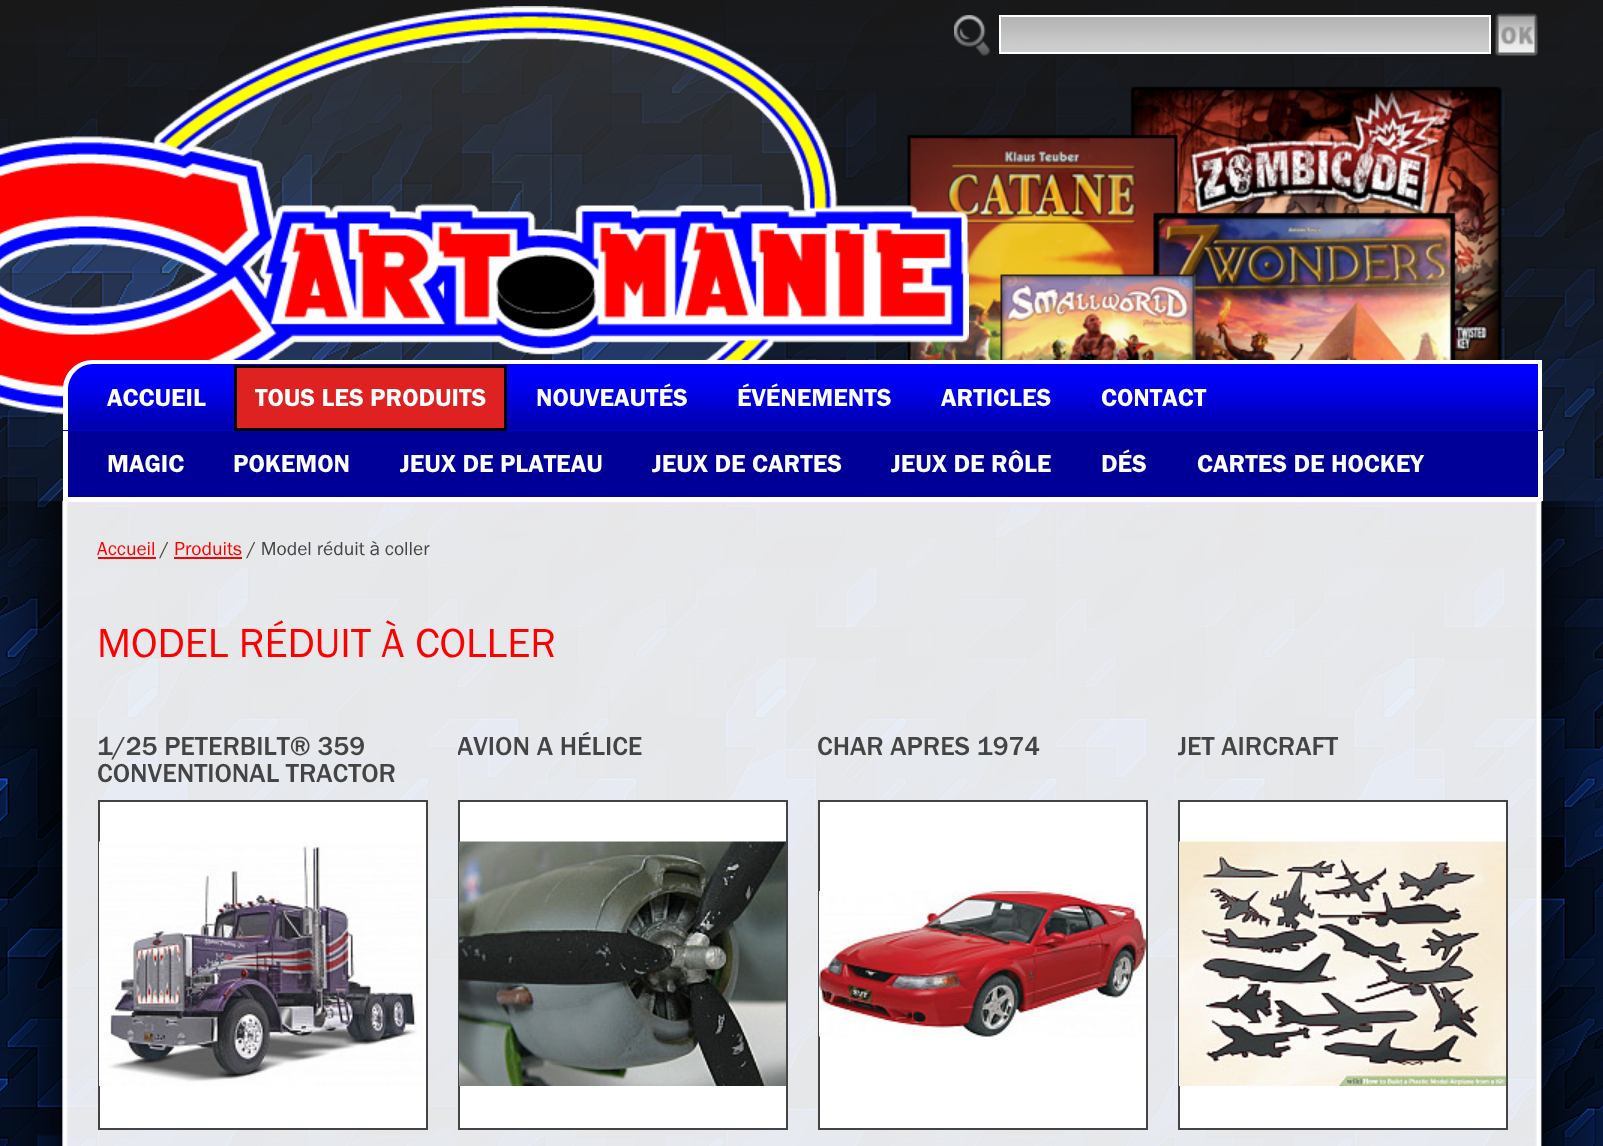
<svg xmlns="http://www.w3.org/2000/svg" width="1603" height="1146">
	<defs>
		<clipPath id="clip1"><rect x="98" y="732" width="330" height="54" /></clipPath>
		<clipPath id="clip2"><rect x="458" y="732" width="330" height="54" /></clipPath>
		<clipPath id="clip3"><rect x="818" y="732" width="330" height="54" /></clipPath>
		<clipPath id="clip4"><rect x="1178" y="732" width="330" height="54" /></clipPath>
	</defs>
	<rect width="100%" height="100%" fill="#FFFFFF" />
	<image x="0" y="0" width="1603" height="1146" href="assets/img1.png" />
	<image x="0" y="0" width="1603" height="750" href="assets/img2.png" />
	<image x="907" y="86" width="595" height="274" href="assets/img3.png" />
	<image x="0" y="6" width="969" height="409" href="assets/img4.png" />
	<image x="954" y="15" width="36" height="41" href="assets/img5.png" />
	<image x="1001" y="17" width="488" height="35" href="assets/img6.png" />
	<rect x="1000" y="16" width="490" height="37" fill="none" stroke="#FFFFFF" stroke-width="2" />
	<image x="1495" y="13" width="43" height="43" href="assets/img7.png" />
	<path d="M93 360H1542V431H63V390C63 373.5 76.5 360 93 360Z" fill="#0000EA" />
	<image x="63" y="364" width="1479" height="67" href="assets/img8.png" />
	<path d="M93 360H1542V430H63V390C63 373 76 360 93 360ZM93 364H1538V430H68V390C68 376 79 364 93 364Z" fill="#FFFFFF" fill-rule="evenodd" />
	<text x="107" y="406" font-family="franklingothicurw" font-size="25.5" fill="#FFFFFF">ACCUEIL</text>
	<rect x="235.5" y="366.5" width="270" height="63" fill="#DE2121" stroke="#000000" stroke-width="3" />
	<g font-family="franklingothicurw" font-size="25.5" fill="#FFFFFF">
		<text x="255" y="406">TOUS LES PRODUITS</text>
		<text x="536" y="406">NOUVEAUTÉS</text>
		<text x="737" y="406">ÉVÉNEMENTS</text>
		<text x="941" y="406">ARTICLES</text>
		<text x="1101" y="406">CONTACT</text>
	</g>
	<rect x="68" y="431" width="1470" height="66" fill="#000099" />
	<rect x="1538" y="431" width="5" height="70" fill="#FFFFFF" />
	<rect x="63" y="497" width="1479" height="5" fill="#FFFFFF" />
	<rect x="63" y="431" width="5" height="70" fill="#FFFFFF" />
	<g font-family="franklingothicurw" font-size="25.5" fill="#FFFFFF">
		<text x="107" y="472">MAGIC</text>
		<text x="233" y="472">POKEMON</text>
		<text x="400" y="472">JEUX DE PLATEAU</text>
		<text x="652" y="472">JEUX DE CARTES</text>
		<text x="891" y="472">JEUX DE RÔLE</text>
		<text x="1101" y="472">DÉS</text>
		<text x="1197" y="472">CARTES DE HOCKEY</text>
	</g>
	<image x="0" y="501" width="1603" height="645" href="assets/img9.png" />
	<text x="97" y="555" font-family="'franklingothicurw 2'" font-size="19.5" fill="#FF0000">Accueil</text>
	<rect x="98" y="557" width="58" height="2" fill="#FF0000" />
	<text x="160" y="555" font-family="'franklingothicurw 2'" font-size="19.5" fill="#444444">/</text>
	<text x="174" y="555" font-family="'franklingothicurw 2'" font-size="19.5" fill="#FF0000">Produits</text>
	<rect x="174" y="557" width="68" height="2" fill="#FF0000" />
	<text x="247" y="555" font-family="'franklingothicurw 2'" font-size="19.5" fill="#444444">/ Model réduit à coller</text>
	<text x="97" y="657" font-family="'franklingothicurw 2'" font-size="42" fill="#FF0000">MODEL RÉDUIT À COLLER</text>
	<text x="97" y="755" font-family="'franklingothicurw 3'" font-size="27" fill="#444444">1/25 PETERBILT® 359</text>
	<g clip-path="url(#clip1)">
		<text x="97" y="782" font-family="'franklingothicurw 3'" font-size="27" fill="#444444">CONVENTIONAL TRACTOR</text>
	</g>
	<rect x="99" y="801" width="328" height="328" fill="#FFFFFF" stroke="#444444" stroke-width="2" />
	<image x="99" y="841" width="324" height="245" href="assets/img10.png" />
	<g clip-path="url(#clip2)">
		<text x="457" y="755" font-family="'franklingothicurw 3'" font-size="27" fill="#444444">AVION A HÉLICE</text>
	</g>
	<rect x="459" y="801" width="328" height="328" fill="#FFFFFF" stroke="#444444" stroke-width="2" />
	<image x="459" y="841" width="327" height="245" href="assets/img11.png" />
	<g clip-path="url(#clip3)">
		<text x="817" y="755" font-family="'franklingothicurw 3'" font-size="27" fill="#444444">CHAR APRES 1974</text>
	</g>
	<rect x="819" y="801" width="328" height="328" fill="#FFFFFF" stroke="#444444" stroke-width="2" />
	<image x="819" y="891" width="327" height="146" href="assets/img12.png" />
	<g clip-path="url(#clip4)">
		<text x="1177" y="755" font-family="'franklingothicurw 3'" font-size="27" fill="#444444">JET AIRCRAFT</text>
	</g>
	<rect x="1179" y="801" width="328" height="328" fill="#FFFFFF" stroke="#444444" stroke-width="2" />
	<image x="1179" y="841" width="327" height="245" href="assets/img13.png" />
</svg>
